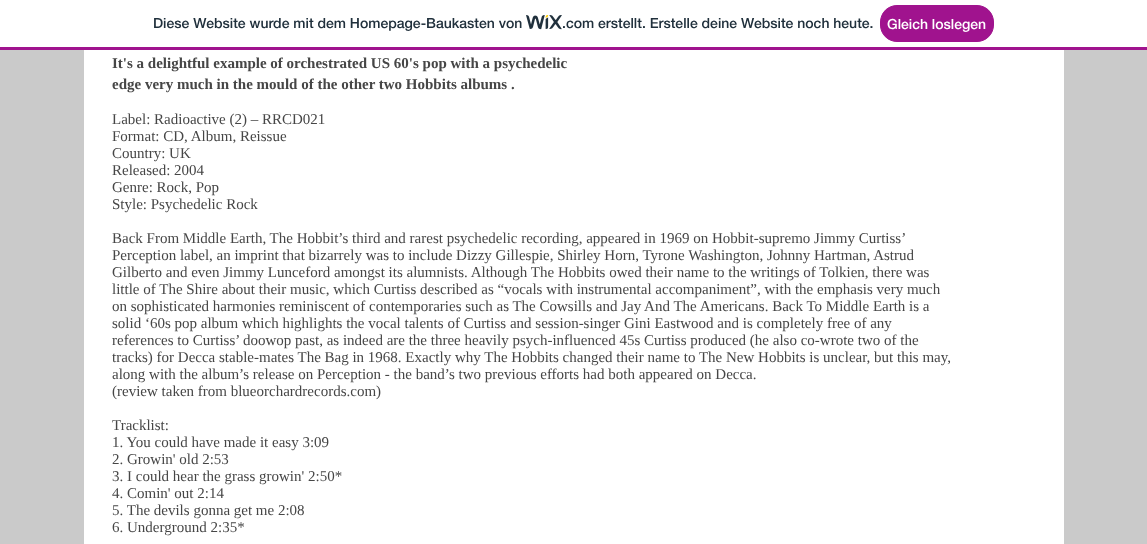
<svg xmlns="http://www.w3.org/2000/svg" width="1147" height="544">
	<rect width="100%" height="100%" fill="#CACACA" />
	<rect x="0" y="0" width="1147" height="47" fill="#FFFFFF" />
	<rect x="0" y="47" width="1147" height="3" fill="#A0138E" />
	<text x="153" y="28" font-family="'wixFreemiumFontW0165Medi'" font-size="14" font-weight="500" fill="#20303C">Diese Website wurde mit dem Homepage-Baukasten von</text>
	<image x="526" y="15" width="36" height="15" href="assets/img1.png" />
	<text x="562" y="28" font-family="'wixFreemiumFontW0165Medi'" font-size="14" font-weight="500" fill="#20303C">.com erstellt. Erstelle deine Website noch heute.</text>
	<rect x="880.5" y="5.5" width="113" height="36" rx="16.5" fill="#A0138E" stroke="#A0138E" />
	<text x="887" y="29" font-family="'wixFreemiumFontW0165Medi'" font-size="14" font-weight="500" fill="#FFFFFF">Gleich loslegen</text>
	<rect x="84" y="50" width="980" height="494" fill="#FFFFFF" />
	<g font-family="Liberation Serif" font-size="15" font-weight="700" fill="#464646">
		<text x="112" y="68">It's a delightful example of orchestrated US 60's pop with a psychedelic</text>
		<text x="112" y="89">edge very much in the mould of the other two Hobbits albums .</text>
	</g>
	<g font-family="Liberation Serif" font-size="15" fill="#464646">
		<text x="112" y="124">Label: Radioactive (2) – RRCD021</text>
		<text x="112" y="141">Format: CD, Album, Reissue</text>
		<text x="112" y="158">Country: UK</text>
		<text x="112" y="175">Released: 2004</text>
		<text x="112" y="192">Genre: Rock, Pop</text>
		<text x="112" y="209">Style: Psychedelic Rock</text>
		<text x="112" y="243">Back From Middle Earth, The Hobbit’s third and rarest psychedelic recording, appeared in 1969 on Hobbit-supremo Jimmy Curtiss’</text>
		<text x="112" y="260">Perception label, an imprint that bizarrely was to include Dizzy Gillespie, Shirley Horn, Tyrone Washington, Johnny Hartman, Astrud</text>
		<text x="112" y="277">Gilberto and even Jimmy Lunceford amongst its alumnists. Although The Hobbits owed their name to the writings of Tolkien, there was</text>
		<text x="112" y="294">little of The Shire about their music, which Curtiss described as “vocals with instrumental accompaniment”, with the emphasis very much</text>
		<text x="112" y="311">on sophisticated harmonies reminiscent of contemporaries such as The Cowsills and Jay And The Americans. Back To Middle Earth is a</text>
		<text x="112" y="328">solid ‘60s pop album which highlights the vocal talents of Curtiss and session-singer Gini Eastwood and is completely free of any</text>
		<text x="112" y="345">references to Curtiss’ doowop past, as indeed are the three heavily psych-influenced 45s Curtiss produced (he also co-wrote two of the</text>
		<text x="112" y="362">tracks) for Decca stable-mates The Bag in 1968. Exactly why The Hobbits changed their name to The New Hobbits is unclear, but this may,</text>
		<text x="112" y="379">along with the album’s release on Perception - the band’s two previous efforts had both appeared on Decca.</text>
		<text x="112" y="396">(review taken from blueorchardrecords.com)</text>
		<text x="112" y="430">Tracklist:</text>
		<text x="112" y="447">1. You could have made it easy 3:09</text>
		<text x="112" y="464">2. Growin' old 2:53</text>
		<text x="112" y="481">3. I could hear the grass growin' 2:50*</text>
		<text x="112" y="498">4. Comin' out 2:14</text>
		<text x="112" y="515">5. The devils gonna get me 2:08</text>
		<text x="112" y="532">6. Underground 2:35*</text>
	</g>
</svg>
